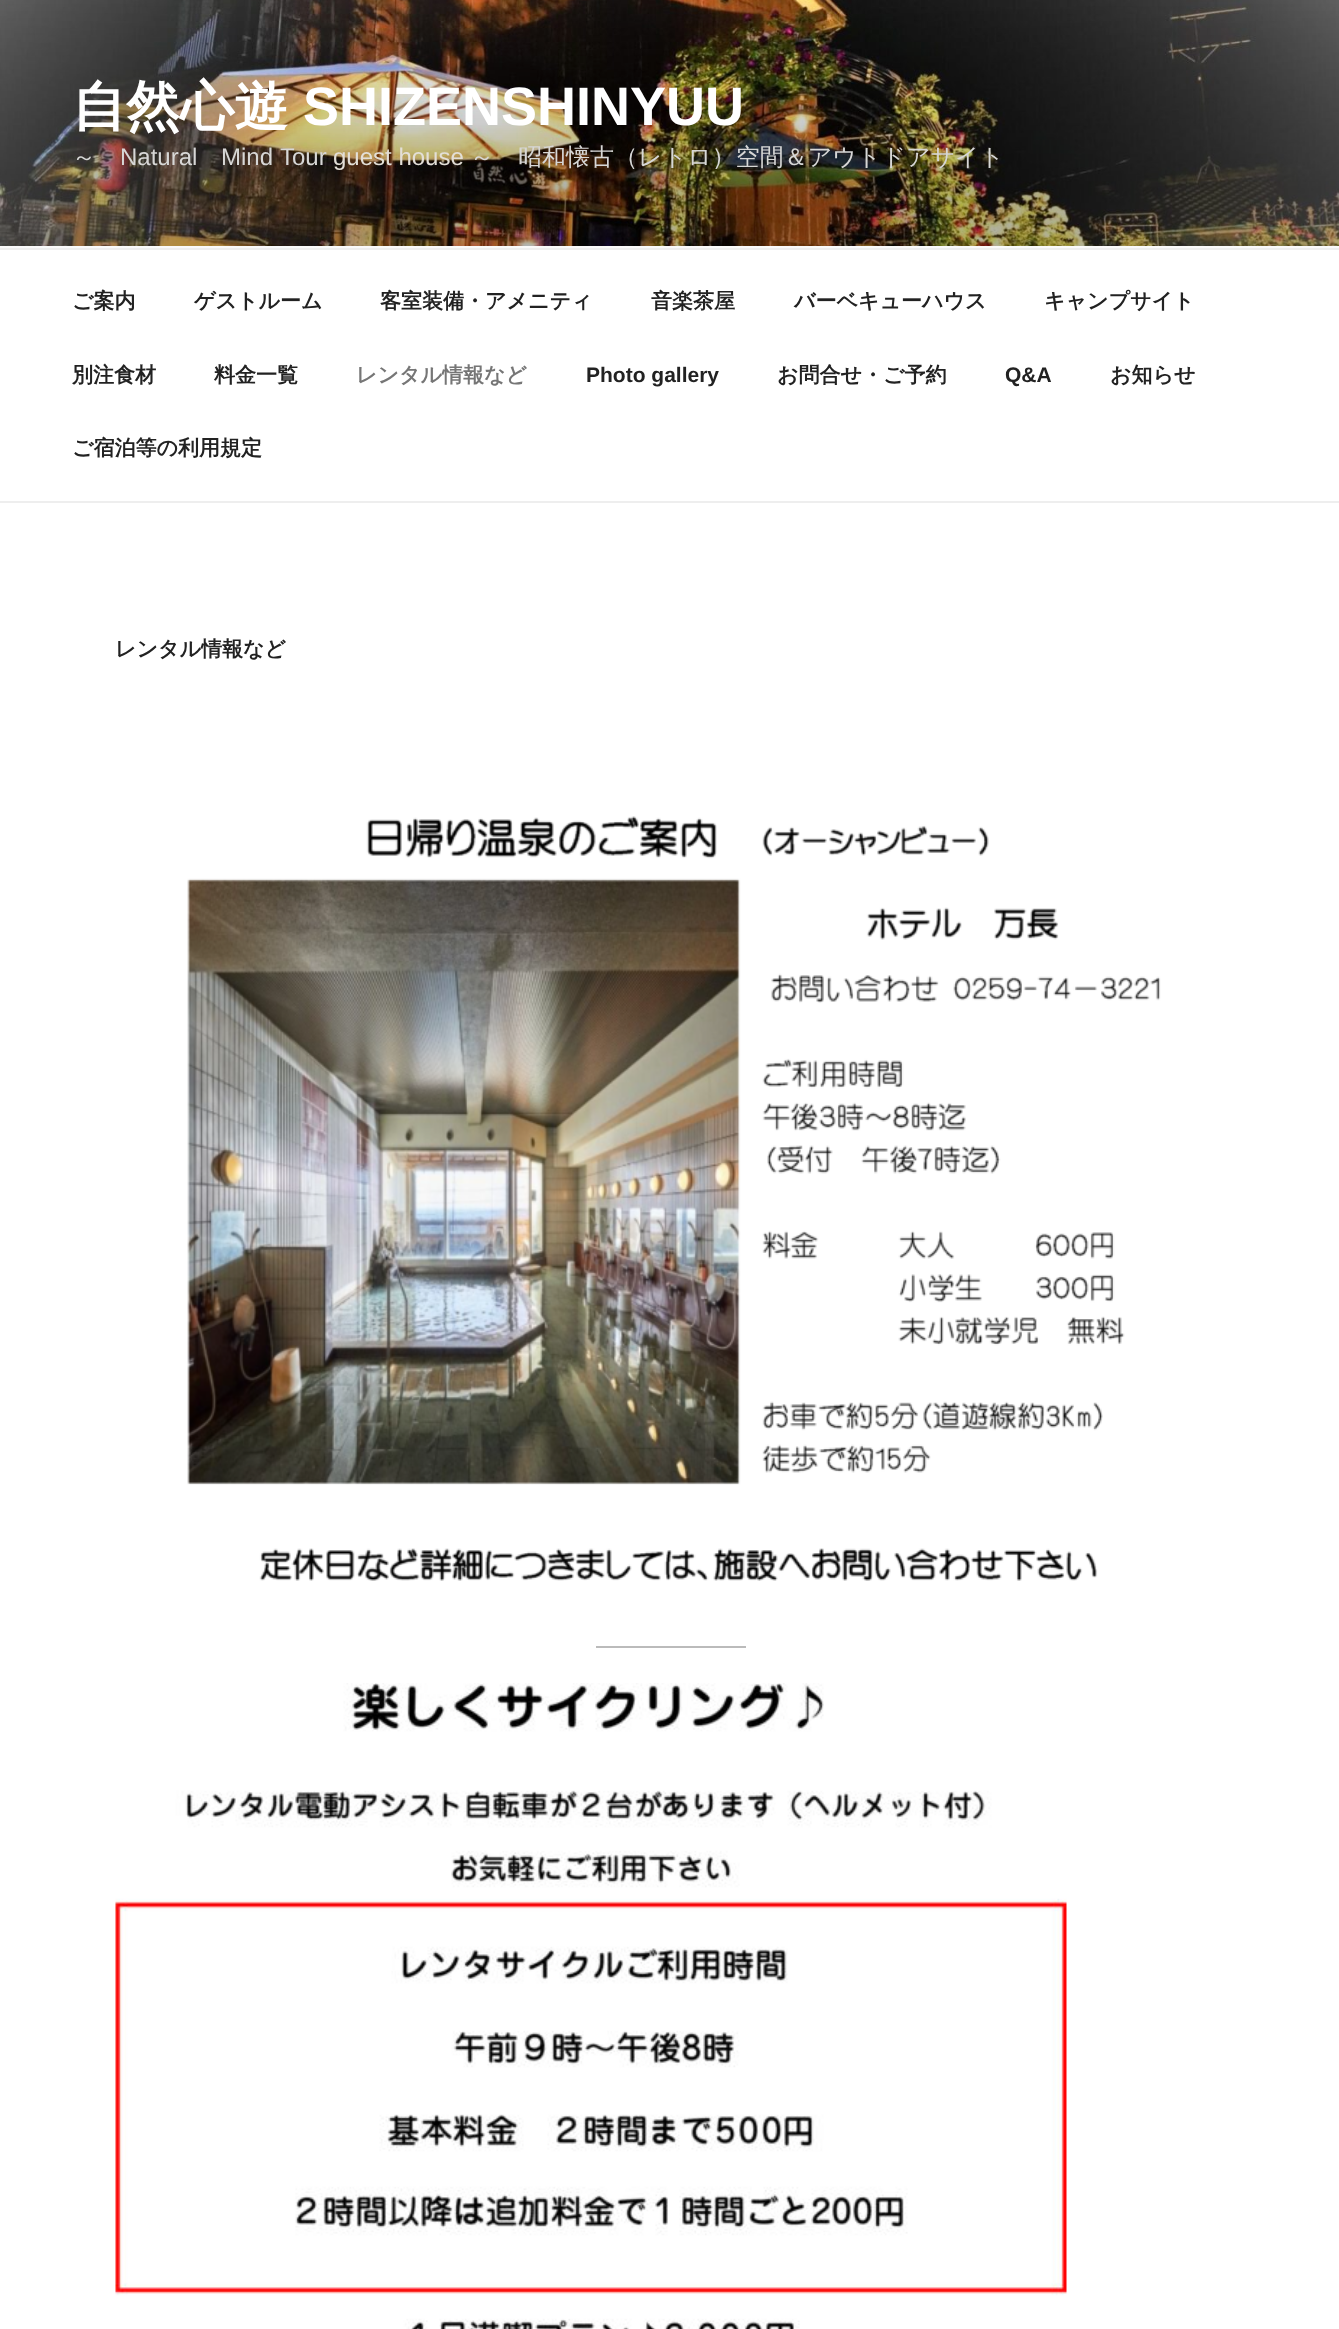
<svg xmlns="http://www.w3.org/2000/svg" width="1339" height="2329">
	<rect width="100%" height="100%" fill="#FFFFFF" />
	<rect x="0" y="246" width="1339" height="2" fill="#FAFAFA" />
	<image x="0" y="0" width="1339" height="246" href="assets/img1.png" />
	<text x="72" y="125" font-family="WenQuanYi Zen Hei" font-size="54" font-weight="700" fill="#FFFFFF">自然心遊</text>
	<text x="303" y="125" font-family="Liberation Sans" font-size="54" font-weight="700" fill="#FFFFFF">SHIZENSHINYUU</text>
	<text x="72" y="165" font-family="WenQuanYi Zen Hei" font-size="24" font-weight="500" fill="#D7D7D6">～</text>
	<g font-family="Liberation Sans" font-size="24" fill="#D7D7D6">
		<text x="120" y="165">Natural</text>
		<text x="221" y="165">Mind</text>
		<text x="280" y="165">Tour</text>
	</g>
	<text x="333" y="165" font-family="Liberation Sans" font-size="24" fill="#E3DFD7">guest house</text>
	<text x="470" y="165" font-family="WenQuanYi Zen Hei" font-size="24" font-weight="500" fill="#D7D7D6">～　昭和懐古（レトロ）空間＆アウトドアサイト</text>
	<rect x="0" y="248" width="1339" height="2" fill="#EEEEEE" />
	<rect x="0" y="501" width="1339" height="2" fill="#EEEEEE" />
	<g font-family="WenQuanYi Zen Hei" font-size="21" font-weight="700" fill="#222222">
		<text x="72" y="308">ご案内</text>
		<text x="194" y="308">ゲストルーム</text>
		<text x="380" y="308">客室装備・アメニティ</text>
		<text x="651" y="308">音楽茶屋</text>
		<text x="794" y="308">バーベキューハウス</text>
		<text x="1044" y="308">キャンプサイト</text>
		<text x="72" y="382">別注食材</text>
		<text x="214" y="382">料金一覧</text>
	</g>
	<text x="356" y="382" font-family="WenQuanYi Zen Hei" font-size="21" font-weight="700" fill="#767676">レンタル情報など</text>
	<text x="586" y="382" font-family="Liberation Sans" font-size="21" font-weight="700" fill="#222222">Photo gallery</text>
	<text x="777" y="382" font-family="WenQuanYi Zen Hei" font-size="21" font-weight="700" fill="#222222">お問合せ・ご予約</text>
	<text x="1005" y="382" font-family="Liberation Sans" font-size="21" font-weight="700" fill="#222222">Q&amp;A</text>
	<g font-family="WenQuanYi Zen Hei" font-size="21" font-weight="700" fill="#222222">
		<text x="1110" y="382">お知らせ</text>
		<text x="72" y="455">ご宿泊等の利用規定</text>
		<text x="115" y="656">レンタル情報など</text>
	</g>
	<image x="187" y="816" width="974" height="765" href="assets/img2.png" />
	<rect x="596" y="1646" width="150" height="2" fill="#BBBBBB" />
	<image x="115" y="1683" width="952" height="646" href="assets/img3.png" />
</svg>
